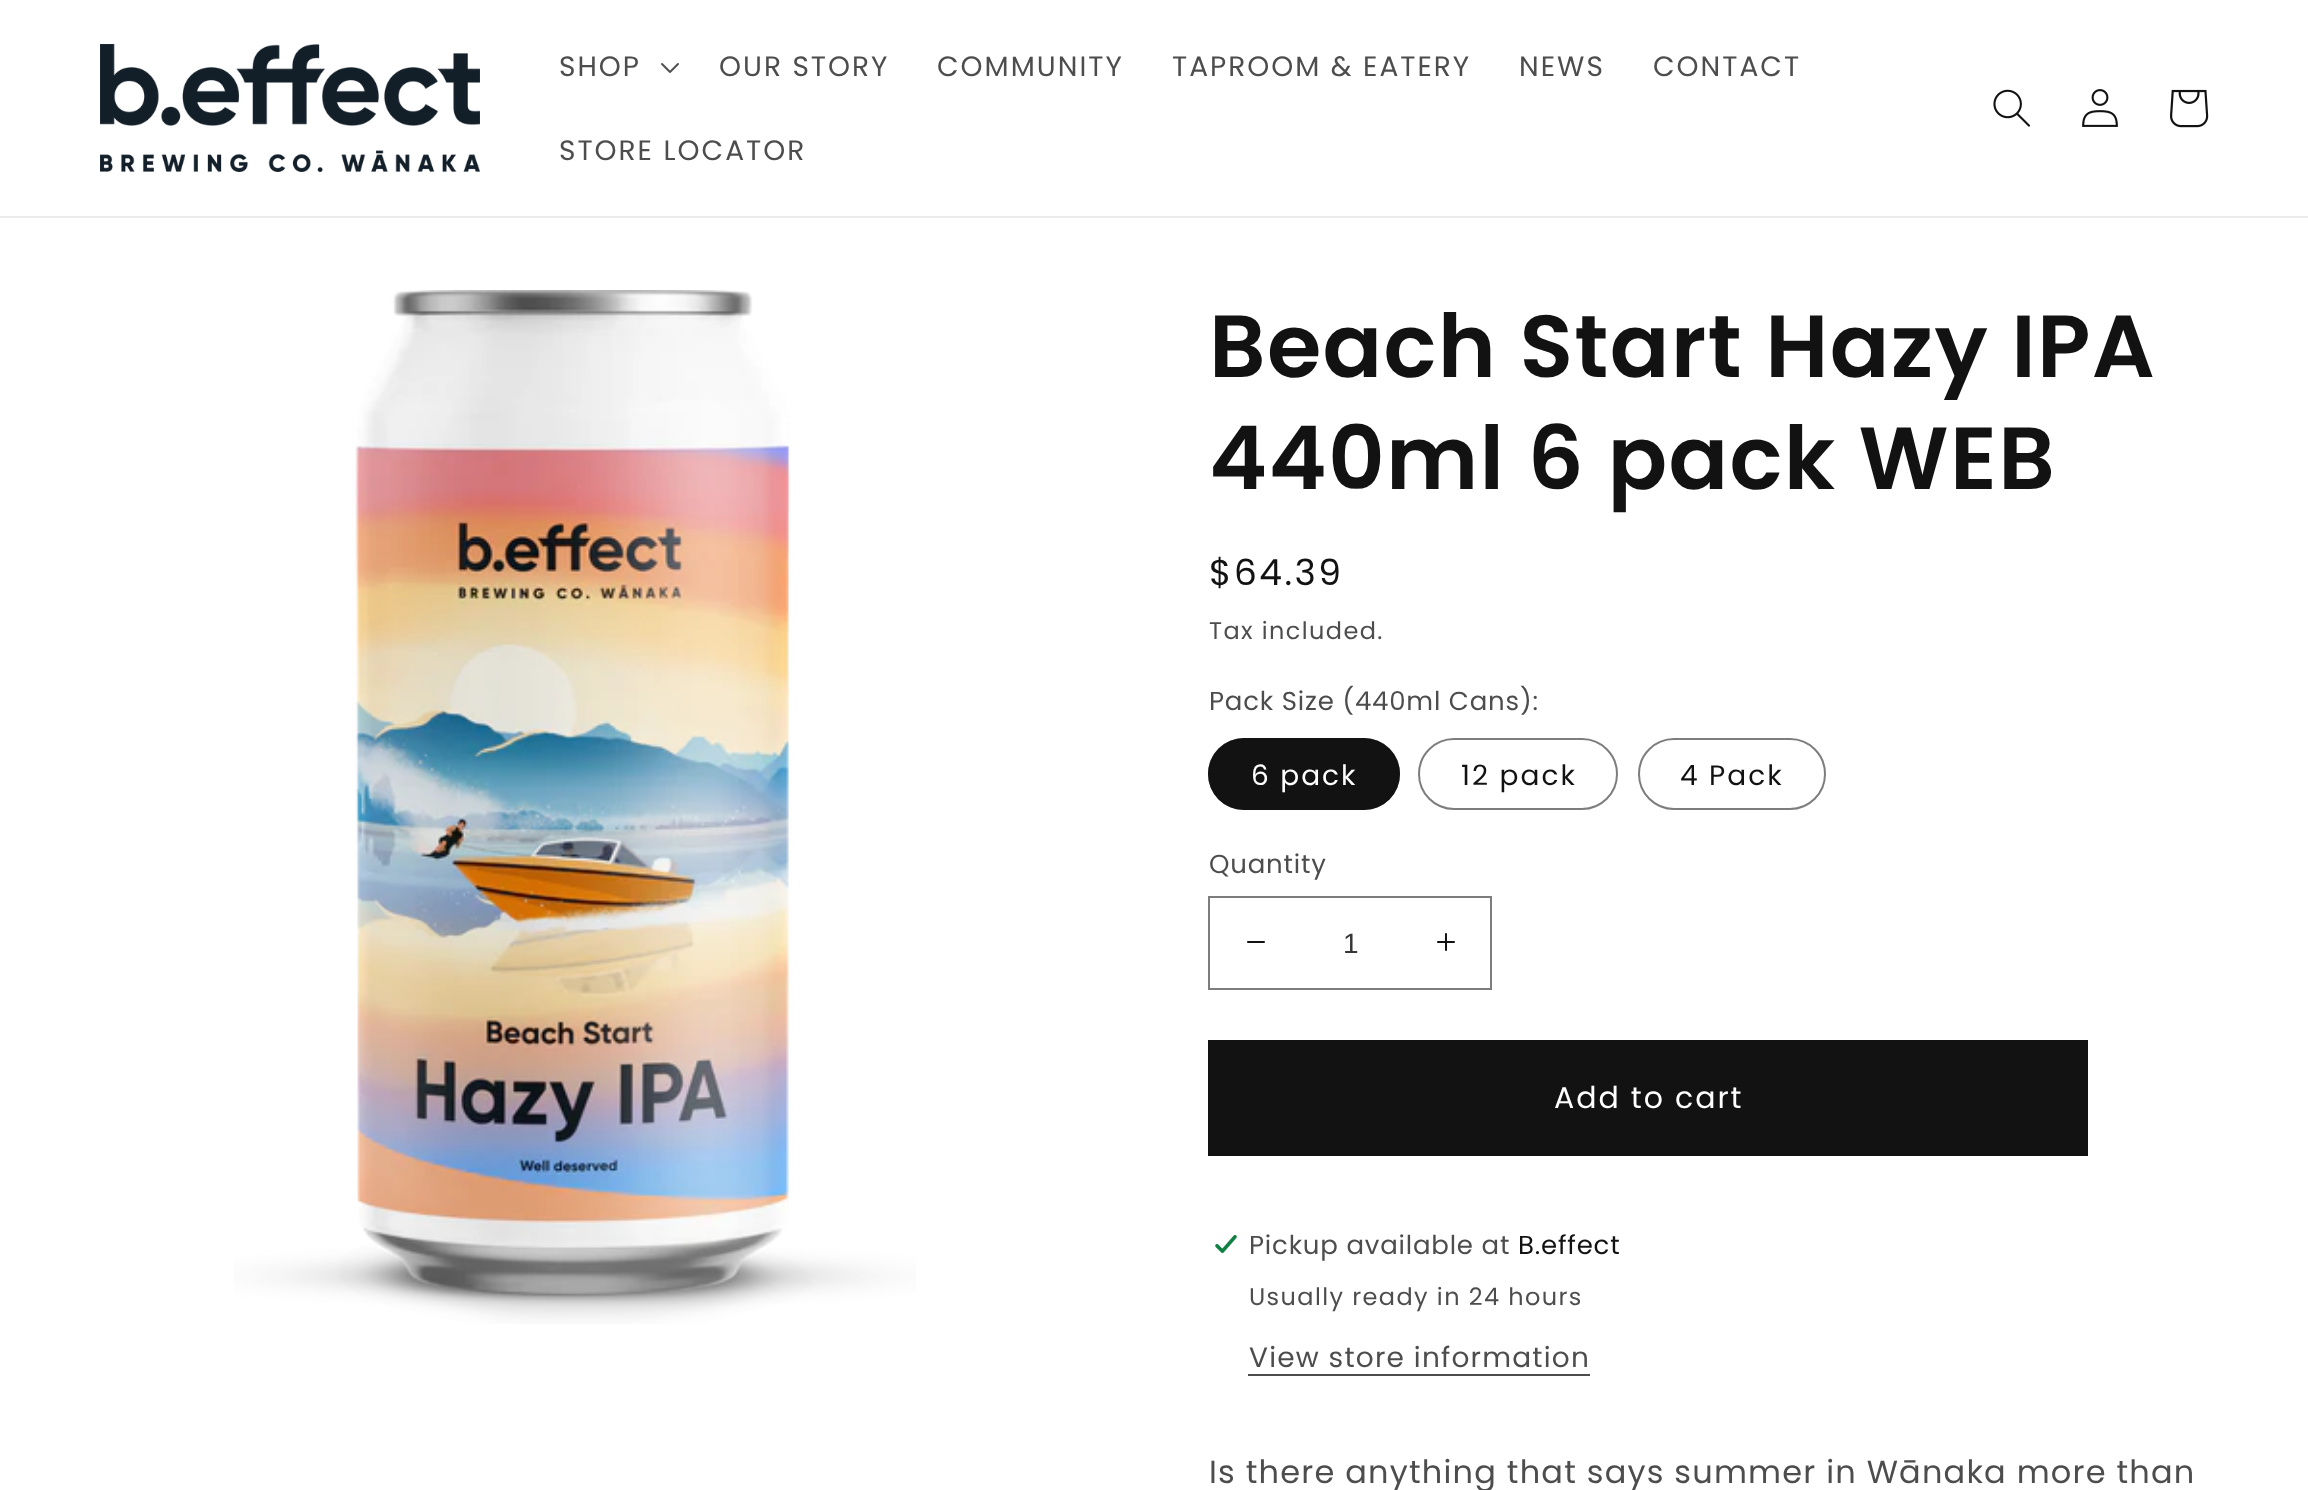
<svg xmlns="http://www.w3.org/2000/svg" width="2308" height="1490">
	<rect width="100%" height="100%" fill="#FFFFFF" />
	<rect x="0" y="216" width="2308" height="2" fill="#ECECEC" />
	<image x="100" y="44" width="380" height="128" href="assets/img1.png" />
	<text x="559" y="76" font-family="Poppins" font-size="28" letter-spacing="2" fill="#4D4D4D">SHOP</text>
	<image x="661" y="63" width="18" height="10" href="assets/img2.png" />
	<g font-family="Poppins" font-size="28" letter-spacing="2" fill="#4D4D4D">
		<text x="719" y="76">OUR STORY</text>
		<text x="937" y="76">COMMUNITY</text>
		<text x="1172" y="76">TAPROOM &amp; EATERY</text>
		<text x="1519" y="76">NEWS</text>
		<text x="1653" y="76">CONTACT</text>
		<text x="559" y="160">STORE LOCATOR</text>
	</g>
	<image x="1993" y="89" width="37" height="38" href="assets/img3.png" />
	<image x="2082" y="89" width="36" height="38" href="assets/img4.png" />
	<image x="2170" y="89" width="39" height="39" href="assets/img5.png" />
	<image x="234" y="290" width="682" height="1034" href="assets/img6.png" />
	<g font-family="Poppins" font-size="88" font-weight="600" letter-spacing="1.3" fill="#121212">
		<text x="1209" y="377">Beach Start Hazy IPA</text>
		<text x="1209" y="489">440ml 6 pack WEB</text>
	</g>
	<text x="1209" y="585" font-family="Poppins" font-size="36" letter-spacing="2.5" fill="#121212">$64.39</text>
	<text x="1209" y="639" font-family="Poppins" font-size="24" letter-spacing="1.4" fill="#4D4D4D">Tax included.</text>
	<text x="1209" y="710" font-family="Poppins" font-size="26" letter-spacing="0.8" fill="#4D4D4D">Pack Size (440ml Cans):</text>
	<rect x="1208" y="738" width="192" height="72" rx="36" fill="#121212" />
	<rect x="1209" y="739" width="190" height="70" rx="35" fill="none" stroke="#121212" stroke-opacity="0.55" stroke-width="2" />
	<text x="1251" y="785" font-family="Poppins" font-size="28" letter-spacing="2" fill="#FFFFFF">6 pack</text>
	<rect x="1419" y="739" width="198" height="70" rx="35" fill="none" stroke="#7D7D7D" stroke-width="2" />
	<text x="1461" y="785" font-family="Poppins" font-size="28" letter-spacing="2" fill="#121212">12 pack</text>
	<rect x="1639" y="739" width="186" height="70" rx="35" fill="none" stroke="#7D7D7D" stroke-width="2" />
	<text x="1680" y="785" font-family="Poppins" font-size="28" letter-spacing="2" fill="#121212">4 Pack</text>
	<text x="1209" y="873" font-family="Poppins" font-size="26" letter-spacing="0.8" fill="#4D4D4D">Quantity</text>
	<image x="1247" y="941" width="18" height="2" href="assets/img7.png" />
	<image x="1437" y="933" width="18" height="18" href="assets/img8.png" />
	<rect x="1209" y="897" width="282" height="92" fill="none" stroke="#7D7D7D" stroke-width="2" />
	<text x="1343" y="953" font-family="Liberation Sans" font-size="28" fill="#363636">1</text>
	<rect x="1208" y="1040" width="880" height="116" fill="#121212" />
	<text x="1554" y="1108" font-family="Poppins" font-size="30" letter-spacing="2" fill="#FFFFFF">Add to cart</text>
	<image x="1215" y="1235" width="22" height="18" href="assets/img9.png" />
	<text x="1249" y="1254" font-family="Poppins" font-size="26" letter-spacing="0.8" fill="#4D4D4D">Pickup available at</text>
	<text x="1518" y="1254" font-family="Poppins" font-size="26" letter-spacing="0.8" fill="#121212">B.effect</text>
	<text x="1249" y="1305" font-family="Poppins" font-size="24" letter-spacing="1.4" fill="#4D4D4D">Usually ready in 24 hours</text>
	<text x="1249" y="1367" font-family="Poppins" font-size="28" letter-spacing="1.2" fill="#4D4D4D">View store information</text>
	<rect x="1248" y="1374" width="342" height="2" fill="#4D4D4D" />
	<text x="1209" y="1483" font-family="Poppins" font-size="32" letter-spacing="1.2" fill="#4D4D4D">Is there anything that says summer in Wānaka more than</text>
</svg>
